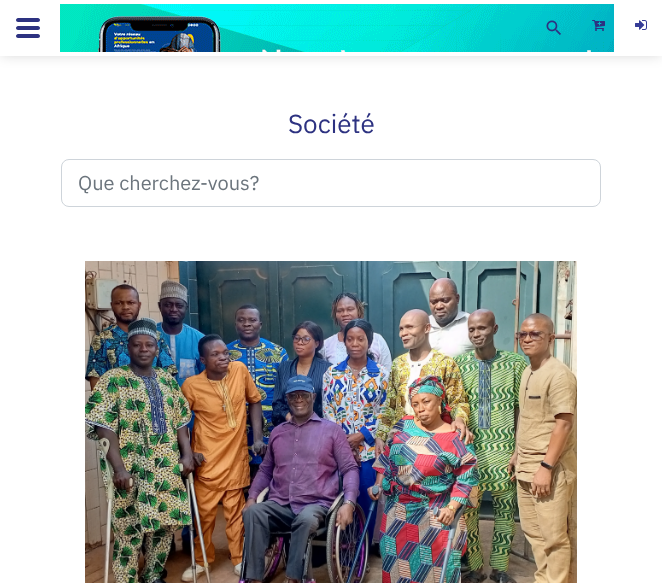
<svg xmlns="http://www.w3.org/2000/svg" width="662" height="583">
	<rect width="100%" height="100%" fill="#FFFFFF" />
	<rect x="1" y="1" width="660" height="54" fill="#000000" fill-opacity="0.17" filter="blur(6.5px)" />
	<rect x="0" y="0" width="662" height="56" fill="#FFFFFF" />
	<path d="M38 30H18C17 30 16 29 16 28C16 27 17 26 18 26H38C39 26 40 27 40 28C40 29 39 30 38 30ZM38 38H18C17 38 16 37 16 36C16 35 17 34 18 34H38C39 34 40 35 40 36C40 37 39 38 38 38ZM38 22H18C17 22 16 21 16 20C16 19 17 18 18 18H38C39 18 40 19 40 20C40 21 39 22 38 22Z" fill="#2D3281" />
	<image x="60" y="4" width="554" height="48" href="assets/img1.png" />
	<image x="546" y="20" width="15" height="15" href="assets/img2.png" />
	<image x="592" y="20" width="13" height="11" href="assets/img3.png" />
	<image x="635" y="20" width="12" height="10" href="assets/img4.png" />
	<text x="288" y="133" font-family="IBM Plex Sans" font-size="26" fill="#2D3281">Société</text>
	<rect x="61.5" y="159.5" width="539" height="47" rx="7.5" fill="none" stroke="#CED4DA" />
	<text x="78" y="190" font-family="IBM Plex Sans" font-size="20" fill="#6C757D">Que cherchez-vous?</text>
	<image x="85" y="261" width="492" height="322" href="assets/img5.png" />
</svg>
